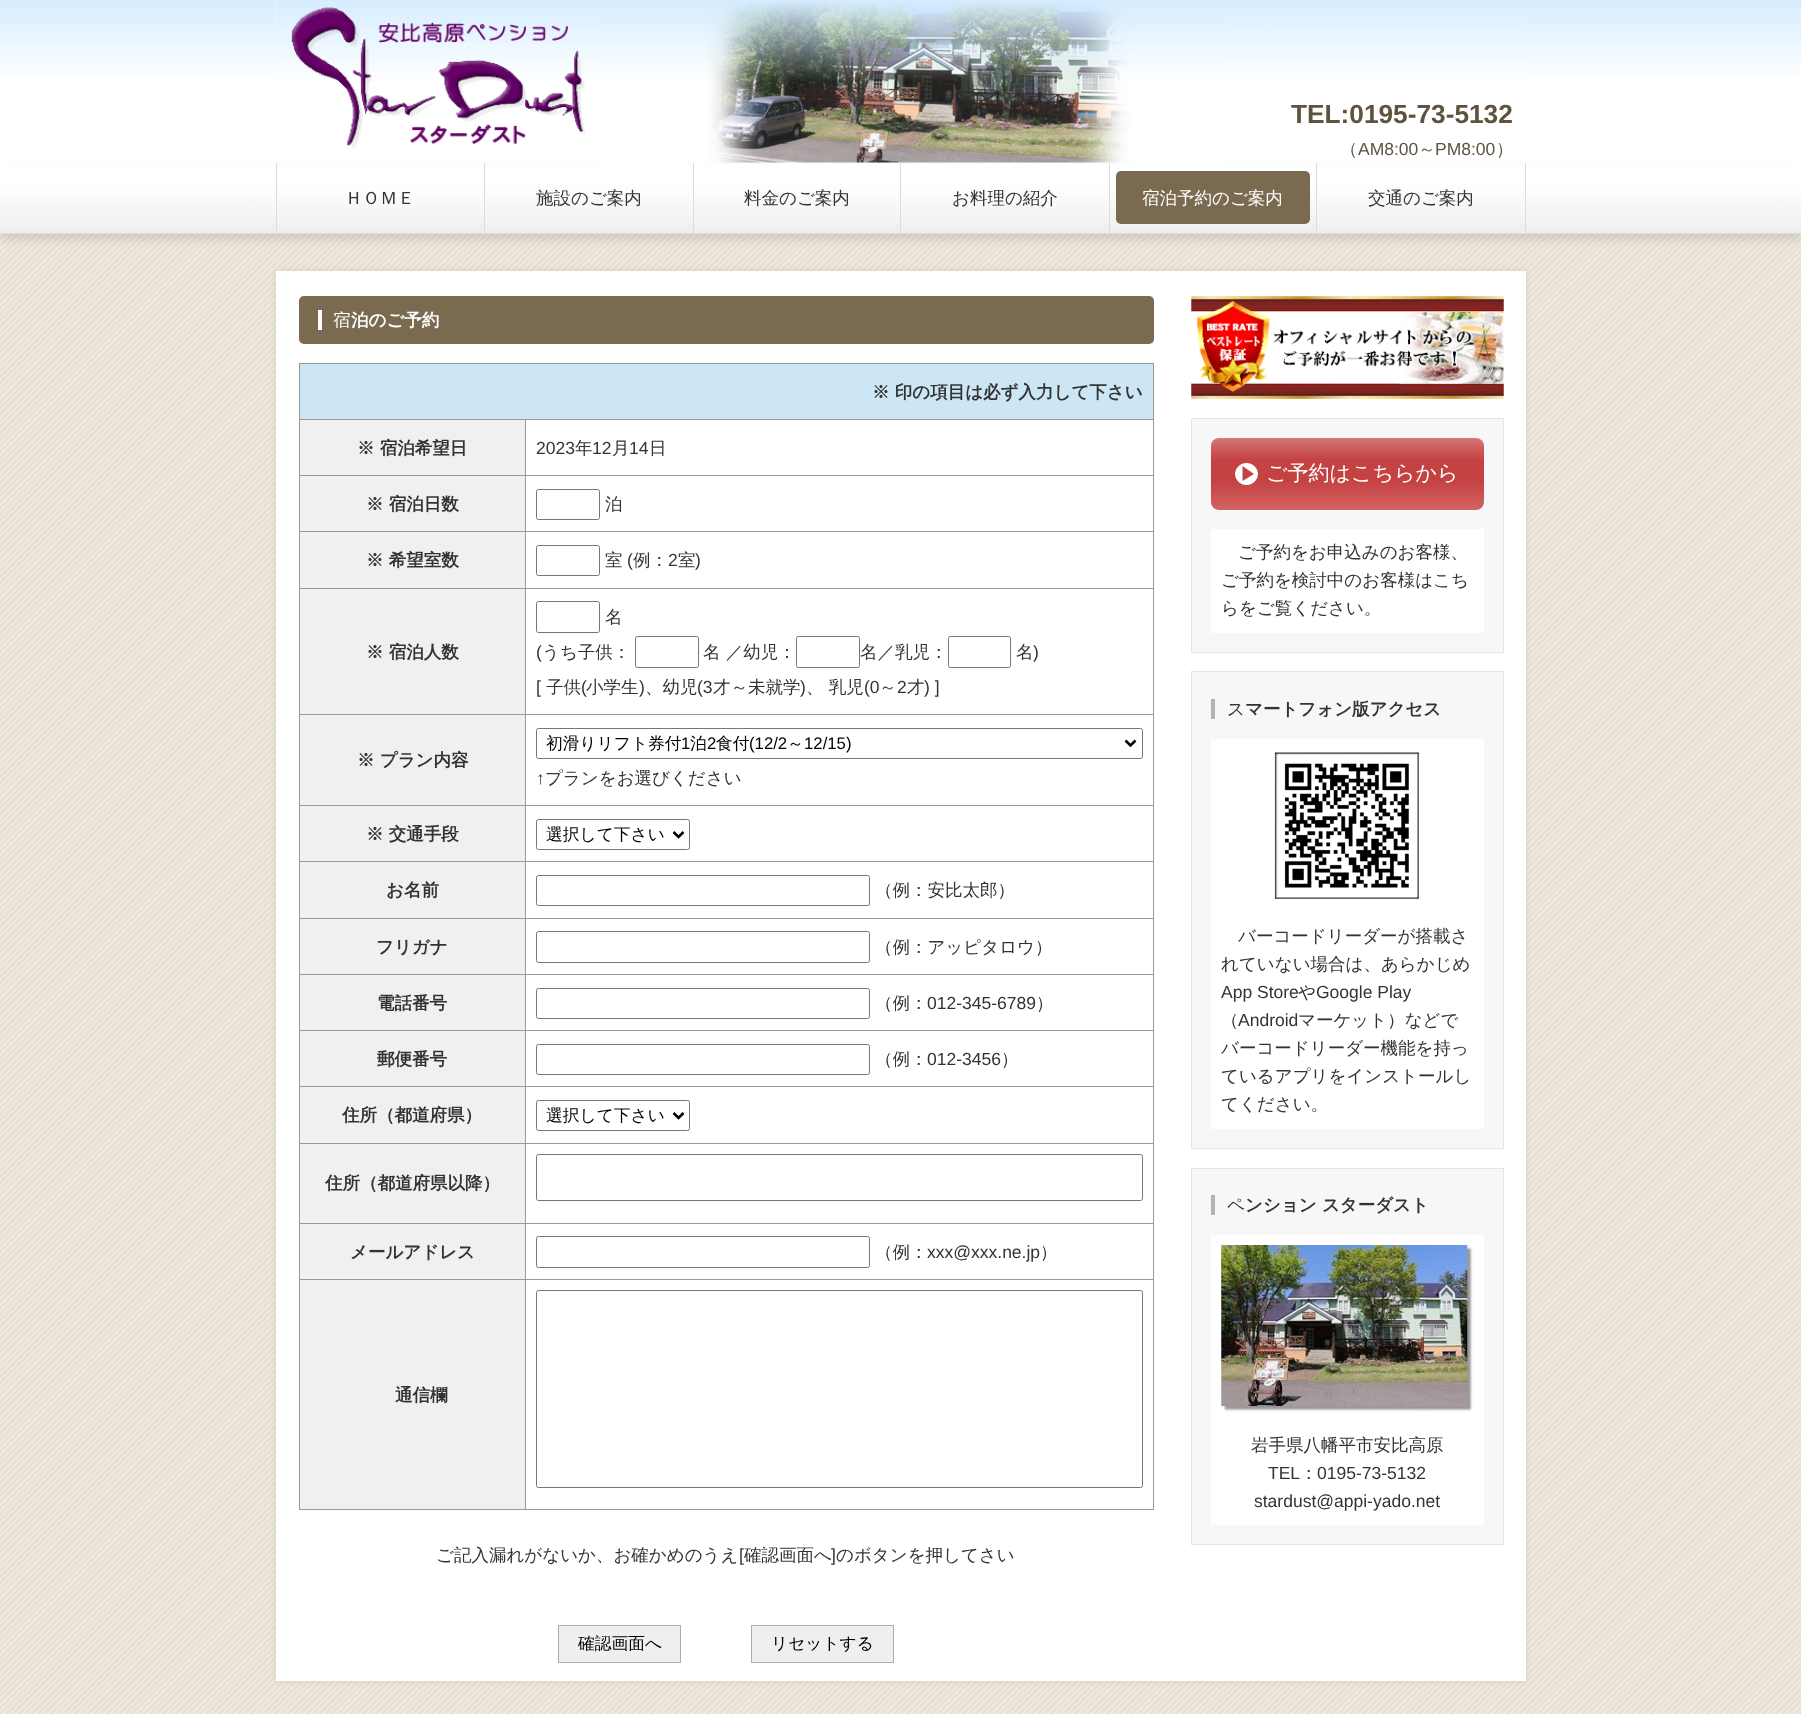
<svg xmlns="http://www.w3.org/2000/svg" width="1801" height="1714">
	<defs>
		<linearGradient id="g1" gradientUnits="userSpaceOnUse" x1="901" y1="0" x2="901" y2="163"><stop offset="0" stop-color="#D5EDFF" /><stop offset="0.5" stop-color="#FFFFFF" /></linearGradient>
		<linearGradient id="g2" gradientUnits="userSpaceOnUse" x1="901" y1="162" x2="901" y2="233"><stop offset="0.3" stop-color="#FFFFFF" /><stop offset="1" stop-color="#EEEEEE" /></linearGradient>
		<linearGradient id="g3" gradientUnits="userSpaceOnUse" x1="1348" y1="438" x2="1348" y2="510"><stop offset="0" stop-color="#D57678" /><stop offset="0.3" stop-color="#C54242" /><stop offset="0.6" stop-color="#C54242" /><stop offset="1" stop-color="#D36464" /></linearGradient>
	</defs>
	<rect width="100%" height="100%" fill="#FFFFFF" />
	<image x="0" y="234" width="1801" height="1480" href="assets/img1.png" />
	<rect x="0" y="0" width="1801" height="77" fill="url(#g1)" />
	<rect x="276" y="0" width="1250" height="77" fill="#FFFFFF" />
	<rect x="0" y="169" width="1801" height="71" fill="#000000" fill-opacity="0.1" filter="blur(4px)" />
	<image x="276" y="0" width="1250" height="163" href="assets/img2.png" />
	<image x="291" y="7" width="295" height="141" href="assets/img3.png" />
	<text x="1291" y="123" font-family="Liberation Sans" font-size="26.25" font-weight="700" fill="#5E533E">TEL:0195-73-5132</text>
	<text x="1340" y="155" font-family="WenQuanYi Zen Hei" font-size="17.5" font-weight="500" fill="#5E533E">（</text>
	<text x="1358" y="155" font-family="Liberation Sans" font-size="17.5" fill="#5E533E">AM8:00</text>
	<text x="1418" y="155" font-family="WenQuanYi Zen Hei" font-size="17.5" font-weight="500" fill="#5E533E">～</text>
	<text x="1435" y="155" font-family="Liberation Sans" font-size="17.5" fill="#5E533E">PM8:00</text>
	<text x="1496" y="155" font-family="WenQuanYi Zen Hei" font-size="17.5" font-weight="500" fill="#5E533E">）</text>
	<rect x="0" y="164" width="1801" height="69" fill="url(#g2)" />
	<rect x="0" y="233" width="1801" height="1" fill="#DCDCDC" />
	<rect x="276" y="163" width="1" height="70" fill="#DCDCDC" />
	<rect x="484" y="163" width="1" height="70" fill="#DCDCDC" />
	<text x="345" y="204" font-family="WenQuanYi Zen Hei" font-size="17.5" font-weight="500" fill="#333333">ＨＯＭＥ</text>
	<rect x="693" y="163" width="1" height="70" fill="#DCDCDC" />
	<text x="536" y="204" font-family="WenQuanYi Zen Hei" font-size="17.5" font-weight="500" fill="#333333">施設のご案内</text>
	<rect x="900" y="163" width="1" height="70" fill="#DCDCDC" />
	<text x="744" y="204" font-family="WenQuanYi Zen Hei" font-size="17.5" font-weight="500" fill="#333333">料金のご案内</text>
	<rect x="1109" y="163" width="1" height="70" fill="#DCDCDC" />
	<text x="952" y="204" font-family="WenQuanYi Zen Hei" font-size="17.5" font-weight="500" fill="#333333">お料理の紹介</text>
	<rect x="1316" y="163" width="1" height="70" fill="#DCDCDC" />
	<rect x="1116" y="171" width="194" height="53" rx="5" fill="#7A6B50" />
	<text x="1142" y="204" font-family="WenQuanYi Zen Hei" font-size="17.5" font-weight="500" fill="#FFFFFF">宿泊予約のご案内</text>
	<rect x="1525" y="163" width="1" height="70" fill="#DCDCDC" />
	<text x="1368" y="204" font-family="WenQuanYi Zen Hei" font-size="17.5" font-weight="500" fill="#333333">交通のご案内</text>
	<rect x="276" y="271" width="1250" height="1410" fill="#000000" fill-opacity="0.1" filter="blur(3px)" />
	<rect x="276" y="271" width="1250" height="1410" fill="#FFFFFF" />
	<rect x="299" y="296" width="855" height="48" rx="5" fill="#7A6B50" />
	<text x="333" y="326" font-family="Noto Sans" font-size="17.5" font-weight="100" fill="#FFFFFF">宿</text>
	<rect x="318" y="310" width="4" height="20" fill="#FFFFFF" />
	<text x="351" y="326" font-family="WenQuanYi Zen Hei" font-size="17.5" font-weight="700" fill="#FFFFFF">泊のご予約</text>
	<rect x="299" y="363" width="855" height="1" fill="#999999" />
	<rect x="1153" y="363" width="1" height="1147" fill="#999999" />
	<rect x="299" y="1509" width="855" height="1" fill="#999999" />
	<rect x="299" y="363" width="1" height="1147" fill="#999999" />
	<rect x="300" y="364" width="853" height="55" fill="#CCE6F6" />
	<text x="872" y="398" font-family="WenQuanYi Zen Hei" font-size="17.5" font-weight="700" fill="#333333">※ 印の項目は必ず入力して下さい</text>
	<rect x="300" y="420" width="225" height="55" fill="#F0F0F0" />
	<rect x="525" y="419" width="629" height="1" fill="#999999" />
	<rect x="525" y="475" width="629" height="1" fill="#999999" />
	<rect x="300" y="476" width="225" height="112" fill="#F0F0F0" />
	<rect x="525" y="531" width="629" height="1" fill="#999999" />
	<rect x="525" y="588" width="629" height="1" fill="#999999" />
	<rect x="525" y="714" width="629" height="1" fill="#999999" />
	<rect x="525" y="805" width="629" height="1" fill="#999999" />
	<rect x="300" y="806" width="225" height="112" fill="#F0F0F0" />
	<rect x="525" y="861" width="629" height="1" fill="#999999" />
	<rect x="525" y="918" width="629" height="1" fill="#999999" />
	<rect x="525" y="974" width="629" height="1" fill="#999999" />
	<rect x="525" y="1030" width="629" height="1" fill="#999999" />
	<rect x="300" y="1031" width="225" height="112" fill="#F0F0F0" />
	<rect x="525" y="1086" width="629" height="1" fill="#999999" />
	<rect x="525" y="1143" width="629" height="1" fill="#999999" />
	<rect x="525" y="1223" width="629" height="1" fill="#999999" />
	<rect x="525" y="1279" width="629" height="1" fill="#999999" />
	<rect x="525" y="1279" width="1" height="231" fill="#999999" />
	<rect x="299" y="1279" width="227" height="1" fill="#999999" />
	<rect x="525" y="1223" width="1" height="57" fill="#999999" />
	<rect x="299" y="1223" width="227" height="1" fill="#999999" />
	<rect x="525" y="1143" width="1" height="81" fill="#999999" />
	<rect x="299" y="1143" width="227" height="1" fill="#999999" />
	<rect x="525" y="1086" width="1" height="58" fill="#999999" />
	<rect x="299" y="1086" width="227" height="1" fill="#999999" />
	<rect x="525" y="1030" width="1" height="58" fill="#999999" />
	<rect x="299" y="1030" width="227" height="1" fill="#999999" />
	<rect x="525" y="974" width="1" height="57" fill="#999999" />
	<rect x="299" y="974" width="227" height="1" fill="#999999" />
	<rect x="525" y="918" width="1" height="57" fill="#999999" />
	<rect x="299" y="918" width="227" height="1" fill="#999999" />
	<rect x="525" y="861" width="1" height="58" fill="#999999" />
	<rect x="299" y="861" width="227" height="1" fill="#999999" />
	<rect x="525" y="805" width="1" height="58" fill="#999999" />
	<rect x="299" y="805" width="227" height="1" fill="#999999" />
	<rect x="525" y="714" width="1" height="92" fill="#999999" />
	<rect x="299" y="714" width="227" height="1" fill="#999999" />
	<rect x="525" y="588" width="1" height="127" fill="#999999" />
	<rect x="299" y="588" width="227" height="1" fill="#999999" />
	<rect x="525" y="531" width="1" height="58" fill="#999999" />
	<rect x="299" y="531" width="227" height="1" fill="#999999" />
	<rect x="525" y="475" width="1" height="58" fill="#999999" />
	<rect x="299" y="475" width="227" height="1" fill="#999999" />
	<rect x="525" y="419" width="1" height="57" fill="#999999" />
	<rect x="299" y="419" width="227" height="1" fill="#999999" />
	<text x="357" y="454" font-family="WenQuanYi Zen Hei" font-size="17.5" font-weight="700" fill="#333333">※ 宿泊希望日</text>
	<text x="536" y="454" font-family="Liberation Sans" font-size="17.5" fill="#333333">2023</text>
	<text x="575" y="454" font-family="WenQuanYi Zen Hei" font-size="17.5" font-weight="500" fill="#333333">年</text>
	<text x="592" y="454" font-family="Liberation Sans" font-size="17.5" fill="#333333">12</text>
	<text x="612" y="454" font-family="WenQuanYi Zen Hei" font-size="17.5" font-weight="500" fill="#333333">月</text>
	<text x="629" y="454" font-family="Liberation Sans" font-size="17.5" fill="#333333">14</text>
	<text x="649" y="454" font-family="WenQuanYi Zen Hei" font-size="17.5" font-weight="500" fill="#333333">日</text>
	<text x="366" y="510" font-family="WenQuanYi Zen Hei" font-size="17.5" font-weight="700" fill="#333333">※ 宿泊日数</text>
	<rect x="536.5" y="489.5" width="63" height="30" rx="2" fill="none" stroke="#767676" />
	<text x="605" y="510" font-family="WenQuanYi Zen Hei" font-size="17.5" font-weight="500" fill="#333333">泊</text>
	<text x="366" y="566" font-family="WenQuanYi Zen Hei" font-size="17.5" font-weight="700" fill="#333333">※ 希望室数</text>
	<rect x="536.5" y="545.5" width="63" height="30" rx="2" fill="none" stroke="#767676" />
	<text x="605" y="566" font-family="WenQuanYi Zen Hei" font-size="17.5" font-weight="500" fill="#333333">室</text>
	<text x="627" y="566" font-family="Liberation Sans" font-size="17.5" fill="#333333">(</text>
	<text x="633" y="566" font-family="WenQuanYi Zen Hei" font-size="17.5" font-weight="500" fill="#333333">例：</text>
	<text x="668" y="566" font-family="Liberation Sans" font-size="17.5" fill="#333333">2</text>
	<text x="678" y="566" font-family="WenQuanYi Zen Hei" font-size="17.5" font-weight="500" fill="#333333">室</text>
	<text x="695" y="566" font-family="Liberation Sans" font-size="17.5" fill="#333333">)</text>
	<rect x="300" y="589" width="225" height="125" fill="#F0F0F0" />
	<text x="366" y="658" font-family="WenQuanYi Zen Hei" font-size="17.5" font-weight="700" fill="#333333">※ 宿泊人数</text>
	<rect x="536.5" y="601.5" width="63" height="31" rx="2" fill="none" stroke="#767676" />
	<text x="605" y="623" font-family="WenQuanYi Zen Hei" font-size="17.5" font-weight="500" fill="#333333">名</text>
	<text x="536" y="658" font-family="Liberation Sans" font-size="17.5" fill="#333333">(</text>
	<text x="542" y="658" font-family="WenQuanYi Zen Hei" font-size="17.5" font-weight="500" fill="#333333">うち子供：</text>
	<rect x="635.5" y="636.5" width="63" height="31" rx="2" fill="none" stroke="#767676" />
	<text x="703" y="658" font-family="WenQuanYi Zen Hei" font-size="17.5" font-weight="500" fill="#333333">名 ／幼児：</text>
	<rect x="796.5" y="636.5" width="63" height="31" rx="2" fill="none" stroke="#767676" />
	<text x="860" y="658" font-family="WenQuanYi Zen Hei" font-size="17.5" font-weight="500" fill="#333333">名／乳児：</text>
	<rect x="948.5" y="636.5" width="62" height="31" rx="2" fill="none" stroke="#767676" />
	<text x="1016" y="658" font-family="WenQuanYi Zen Hei" font-size="17.5" font-weight="500" fill="#333333">名</text>
	<g font-family="Liberation Sans" font-size="17.5" fill="#333333">
		<text x="1033" y="658">)</text>
		<text x="536" y="693">[</text>
	</g>
	<text x="546" y="693" font-family="WenQuanYi Zen Hei" font-size="17.5" font-weight="500" fill="#333333">子供</text>
	<text x="581" y="693" font-family="Liberation Sans" font-size="17.5" fill="#333333">(</text>
	<text x="586" y="693" font-family="WenQuanYi Zen Hei" font-size="17.5" font-weight="500" fill="#333333">小学生</text>
	<text x="639" y="693" font-family="Liberation Sans" font-size="17.5" fill="#333333">)</text>
	<text x="645" y="693" font-family="WenQuanYi Zen Hei" font-size="17.5" font-weight="500" fill="#333333">、幼児</text>
	<text x="697" y="693" font-family="Liberation Sans" font-size="17.5" fill="#333333">(3</text>
	<text x="713" y="693" font-family="WenQuanYi Zen Hei" font-size="17.5" font-weight="500" fill="#333333">才～未就学</text>
	<text x="800" y="693" font-family="Liberation Sans" font-size="17.5" fill="#333333">)</text>
	<text x="806" y="693" font-family="WenQuanYi Zen Hei" font-size="17.5" font-weight="500" fill="#333333">、 乳児</text>
	<text x="864" y="693" font-family="Liberation Sans" font-size="17.5" fill="#333333">(0</text>
	<text x="879" y="693" font-family="WenQuanYi Zen Hei" font-size="17.5" font-weight="500" fill="#333333">～</text>
	<text x="897" y="693" font-family="Liberation Sans" font-size="17.5" fill="#333333">2</text>
	<text x="907" y="693" font-family="WenQuanYi Zen Hei" font-size="17.5" font-weight="500" fill="#333333">才</text>
	<text x="924" y="693" font-family="Liberation Sans" font-size="17.5" fill="#333333">) ]</text>
	<rect x="300" y="715" width="225" height="90" fill="#F0F0F0" />
	<text x="357" y="766" font-family="WenQuanYi Zen Hei" font-size="17.5" font-weight="700" fill="#333333">※ プラン内容</text>
	<rect x="536.5" y="728.5" width="606" height="30" rx="2" fill="none" stroke="#767676" />
	<path d="M1125.5 740.5L1130.5 745.5L1135.5 740.5" fill="none" stroke="#000000" stroke-width="2.5" />
	<text x="546" y="749" font-family="WenQuanYi Zen Hei" font-size="16.75" font-weight="500" fill="#000000">初滑りリフト券付</text>
	<text x="681" y="749" font-family="Liberation Sans" font-size="16.75" fill="#000000">1</text>
	<text x="690" y="749" font-family="WenQuanYi Zen Hei" font-size="16.75" font-weight="500" fill="#000000">泊</text>
	<text x="707" y="749" font-family="Liberation Sans" font-size="16.75" fill="#000000">2</text>
	<text x="716" y="749" font-family="WenQuanYi Zen Hei" font-size="16.75" font-weight="500" fill="#000000">食付</text>
	<text x="749" y="749" font-family="Liberation Sans" font-size="16.75" fill="#000000">(12/2</text>
	<text x="787" y="749" font-family="WenQuanYi Zen Hei" font-size="16.75" font-weight="500" fill="#000000">～</text>
	<text x="804" y="749" font-family="Liberation Sans" font-size="16.75" fill="#000000">12/15)</text>
	<text x="536" y="784" font-family="Liberation Sans" font-size="17.5" fill="#333333">↑</text>
	<text x="545" y="784" font-family="WenQuanYi Zen Hei" font-size="17.5" font-weight="500" fill="#333333">プランをお選びください</text>
	<text x="366" y="840" font-family="WenQuanYi Zen Hei" font-size="17.5" font-weight="700" fill="#333333">※ 交通手段</text>
	<rect x="536.5" y="819.5" width="153" height="30" rx="2" fill="none" stroke="#767676" />
	<path d="M673.5 832L678.5 837L683.5 832" fill="none" stroke="#000000" stroke-width="2.5" />
	<text x="546" y="840" font-family="WenQuanYi Zen Hei" font-size="16.75" font-weight="500" fill="#000000">選択して下さい</text>
	<text x="386" y="896" font-family="WenQuanYi Zen Hei" font-size="17.5" font-weight="700" fill="#333333">お名前</text>
	<rect x="536.5" y="875.5" width="333" height="30" rx="2" fill="none" stroke="#767676" />
	<text x="875" y="896" font-family="WenQuanYi Zen Hei" font-size="17.5" font-weight="500" fill="#333333">（例：安比太郎）</text>
	<rect x="300" y="919" width="225" height="55" fill="#F0F0F0" />
	<text x="376" y="953" font-family="WenQuanYi Zen Hei" font-size="17.5" font-weight="700" fill="#333333">フリガナ</text>
	<rect x="536.5" y="931.5" width="333" height="31" rx="2" fill="none" stroke="#767676" />
	<text x="875" y="953" font-family="WenQuanYi Zen Hei" font-size="17.5" font-weight="500" fill="#333333">（例：アッピタロウ）</text>
	<rect x="300" y="975" width="225" height="55" fill="#F0F0F0" />
	<text x="377" y="1009" font-family="WenQuanYi Zen Hei" font-size="17.5" font-weight="700" fill="#333333">電話番号</text>
	<rect x="536.5" y="988.5" width="333" height="30" rx="2" fill="none" stroke="#767676" />
	<text x="875" y="1009" font-family="WenQuanYi Zen Hei" font-size="17.5" font-weight="500" fill="#333333">（例：</text>
	<text x="927" y="1009" font-family="Liberation Sans" font-size="17.5" fill="#333333">012-345-6789</text>
	<text x="1036" y="1009" font-family="WenQuanYi Zen Hei" font-size="17.5" font-weight="500" fill="#333333">）</text>
	<text x="377" y="1065" font-family="WenQuanYi Zen Hei" font-size="17.5" font-weight="700" fill="#333333">郵便番号</text>
	<rect x="536.5" y="1044.5" width="333" height="30" rx="2" fill="none" stroke="#767676" />
	<text x="875" y="1065" font-family="WenQuanYi Zen Hei" font-size="17.5" font-weight="500" fill="#333333">（例：</text>
	<text x="927" y="1065" font-family="Liberation Sans" font-size="17.5" fill="#333333">012-3456</text>
	<text x="1001" y="1065" font-family="WenQuanYi Zen Hei" font-size="17.5" font-weight="500" fill="#333333">）</text>
	<text x="342" y="1121" font-family="WenQuanYi Zen Hei" font-size="17.5" font-weight="700" fill="#333333">住所（都道府県）</text>
	<rect x="536.5" y="1100.5" width="153" height="30" rx="2" fill="none" stroke="#767676" />
	<path d="M673.5 1113L678.5 1118L683.5 1113" fill="none" stroke="#000000" stroke-width="2.5" />
	<text x="546" y="1121" font-family="WenQuanYi Zen Hei" font-size="16.75" font-weight="500" fill="#000000">選択して下さい</text>
	<rect x="300" y="1144" width="225" height="79" fill="#F0F0F0" />
	<text x="325" y="1189" font-family="WenQuanYi Zen Hei" font-size="17.5" font-weight="700" fill="#333333">住所（都道府県以降）</text>
	<rect x="536.5" y="1154.5" width="606" height="46" rx="2" fill="none" stroke="#767676" />
	<rect x="300" y="1224" width="225" height="55" fill="#F0F0F0" />
	<text x="350" y="1258" font-family="WenQuanYi Zen Hei" font-size="17.5" font-weight="700" fill="#333333">メールアドレス</text>
	<rect x="536.5" y="1236.5" width="333" height="31" rx="2" fill="none" stroke="#767676" />
	<text x="875" y="1258" font-family="WenQuanYi Zen Hei" font-size="17.5" font-weight="500" fill="#333333">（例：</text>
	<text x="927" y="1258" font-family="Liberation Sans" font-size="17.5" fill="#333333">xxx@xxx.ne.jp</text>
	<text x="1040" y="1258" font-family="WenQuanYi Zen Hei" font-size="17.5" font-weight="500" fill="#333333">）</text>
	<rect x="300" y="1280" width="225" height="229" fill="#F0F0F0" />
	<text x="395" y="1401" font-family="WenQuanYi Zen Hei" font-size="17.5" font-weight="700" fill="#333333">通信欄</text>
	<rect x="536.5" y="1290.5" width="606" height="197" rx="2" fill="none" stroke="#767676" />
	<text x="436" y="1561" font-family="WenQuanYi Zen Hei" font-size="17.5" font-weight="500" fill="#333333">ご記入漏れがないか、お確かめのうえ</text>
	<text x="739" y="1561" font-family="Liberation Sans" font-size="17.5" fill="#333333">[</text>
	<text x="744" y="1561" font-family="WenQuanYi Zen Hei" font-size="17.5" font-weight="500" fill="#333333">確認画面へ</text>
	<text x="831" y="1561" font-family="Liberation Sans" font-size="17.5" fill="#333333">]</text>
	<text x="836" y="1561" font-family="WenQuanYi Zen Hei" font-size="17.5" font-weight="500" fill="#333333">のボタンを押してさい</text>
	<rect x="558.5" y="1625.5" width="122" height="37" fill="#EFEFEF" stroke="#ACACAC" />
	<text x="578" y="1649" font-family="WenQuanYi Zen Hei" font-size="16.75" font-weight="500" fill="#000000">確認画面へ</text>
	<rect x="751.5" y="1625.5" width="142" height="37" fill="#EFEFEF" stroke="#ACACAC" />
	<text x="771" y="1649" font-family="WenQuanYi Zen Hei" font-size="16.75" font-weight="500" fill="#000000">リセットする</text>
	<image x="1191" y="296" width="313" height="103" href="assets/img4.png" />
	<rect x="1191.5" y="418.5" width="312" height="234" fill="#F7F7F7" stroke="#E4E4E4" />
	<rect x="1211" y="438" width="273" height="72" rx="8" fill="url(#g3)" />
	<rect x="1235.5" y="463.5" width="22" height="21" rx="10.5" fill="#FFFFFF" stroke="#FFFFFF" />
	<text x="1266" y="480" font-family="WenQuanYi Zen Hei" font-size="21" font-weight="500" fill="#FFFFFF">ご予約はこちらから</text>
	<path d="M1242.5 481V466L1254 474Z" fill="#C54242" />
	<rect x="1211" y="529" width="273" height="104" fill="#FFFFFF" />
	<g font-family="WenQuanYi Zen Hei" font-size="17.5" font-weight="500" fill="#333333">
		<text x="1238" y="558">ご予約をお申込みのお客様、</text>
		<text x="1221" y="586">ご予約を検討中のお客様はこち</text>
		<text x="1221" y="614">らをご覧ください。</text>
	</g>
	<rect x="1191.5" y="671.5" width="312" height="477" fill="#F7F7F7" stroke="#E4E4E4" />
	<text x="1227" y="715" font-family="Noto Sans" font-size="17.5" font-weight="100" fill="#333333">ス</text>
	<rect x="1211" y="699" width="4" height="20" fill="#B5B5B5" />
	<text x="1245" y="715" font-family="WenQuanYi Zen Hei" font-size="17.5" font-weight="700" fill="#333333">マートフォン版アクセス</text>
	<rect x="1211" y="739" width="273" height="390" fill="#FFFFFF" />
	<image x="1274" y="752" width="145" height="147" href="assets/img5.png" />
	<g font-family="WenQuanYi Zen Hei" font-size="17.5" font-weight="500" fill="#333333">
		<text x="1238" y="942">バーコードリーダーが搭載さ</text>
		<text x="1221" y="970">れていない場合は、あらかじめ</text>
	</g>
	<text x="1221" y="998" font-family="Liberation Sans" font-size="17.5" fill="#333333">App Store</text>
	<text x="1298" y="998" font-family="WenQuanYi Zen Hei" font-size="17.5" font-weight="500" fill="#333333">や</text>
	<text x="1316" y="998" font-family="Liberation Sans" font-size="17.5" fill="#333333">Google Play</text>
	<text x="1221" y="1026" font-family="WenQuanYi Zen Hei" font-size="17.5" font-weight="500" fill="#333333">（</text>
	<text x="1238" y="1026" font-family="Liberation Sans" font-size="17.5" fill="#333333">Android</text>
	<g font-family="WenQuanYi Zen Hei" font-size="17.5" font-weight="500" fill="#333333">
		<text x="1298" y="1026">マーケット）などで</text>
		<text x="1221" y="1054">バーコードリーダー機能を持っ</text>
		<text x="1221" y="1082">ているアプリをインストールし</text>
		<text x="1221" y="1110">てください。</text>
	</g>
	<rect x="1191.5" y="1168.5" width="312" height="376" fill="#F7F7F7" stroke="#E4E4E4" />
	<text x="1227" y="1211" font-family="Noto Sans" font-size="17.5" font-weight="100" fill="#333333">ペ</text>
	<rect x="1211" y="1195" width="4" height="20" fill="#B5B5B5" />
	<text x="1245" y="1211" font-family="WenQuanYi Zen Hei" font-size="17.5" font-weight="700" fill="#333333">ンション スターダスト</text>
	<rect x="1211" y="1235" width="273" height="290" fill="#FFFFFF" />
	<image x="1221" y="1245" width="252" height="167" href="assets/img6.png" />
	<text x="1251" y="1451" font-family="WenQuanYi Zen Hei" font-size="17.5" font-weight="500" fill="#333333">岩手県八幡平市安比高原</text>
	<text x="1268" y="1479" font-family="Liberation Sans" font-size="17.5" fill="#333333">TEL</text>
	<text x="1300" y="1479" font-family="WenQuanYi Zen Hei" font-size="17.5" font-weight="500" fill="#333333">：</text>
	<g font-family="Liberation Sans" font-size="17.5" fill="#333333">
		<text x="1317" y="1479">0195-73-5132</text>
		<text x="1254" y="1507">stardust@appi-yado.net</text>
	</g>
</svg>
